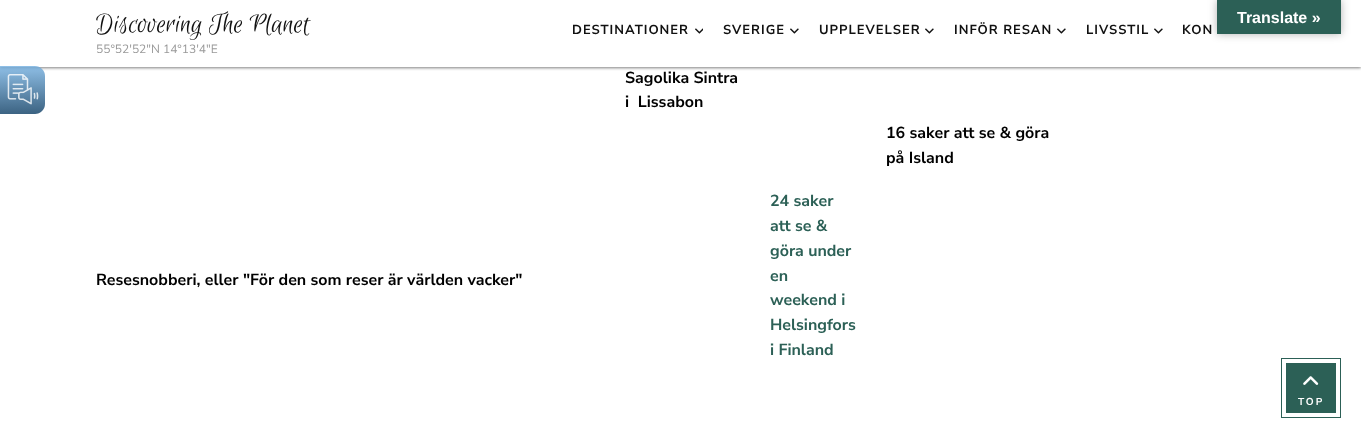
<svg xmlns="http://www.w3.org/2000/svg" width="1361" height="438">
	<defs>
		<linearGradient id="g1" gradientUnits="userSpaceOnUse" x1="22" y1="66" x2="23" y2="114"><stop offset="0" stop-color="#73AFE0" stop-opacity="0.8" /><stop offset="1" stop-color="#0B3C63" stop-opacity="0.8" /></linearGradient>
	</defs>
	<rect width="100%" height="100%" fill="#FFFFFF" />
	<rect x="0" y="1" width="1361" height="67" fill="#000000" fill-opacity="0.5" filter="blur(1.5px)" />
	<rect x="0" y="0" width="1361" height="67" fill="#FFFFFF" />
	<text x="96" y="32" font-family="Euphoria Script" font-size="30" fill="#111111">Discovering The Planet</text>
	<text x="96" y="53" font-family="Nunito Sans" font-size="12" fill="#999999">55°52'52"N 14°13'4"E</text>
	<text x="572" y="34" font-family="Nunito Sans" font-size="13" font-weight="700" letter-spacing="1" fill="#111111">DESTINATIONER</text>
	<image x="695" y="28" width="8" height="6" href="assets/img1.png" />
	<text x="723" y="34" font-family="Nunito Sans" font-size="13" font-weight="700" letter-spacing="1" fill="#111111">SVERIGE</text>
	<image x="790" y="28" width="9" height="6" href="assets/img2.png" />
	<text x="819" y="34" font-family="Nunito Sans" font-size="13" font-weight="700" letter-spacing="1" fill="#111111">UPPLEVELSER</text>
	<image x="925" y="28" width="9" height="6" href="assets/img2.png" />
	<text x="954" y="34" font-family="Nunito Sans" font-size="13" font-weight="700" letter-spacing="1" fill="#111111">INFÖR RESAN</text>
	<image x="1057" y="28" width="9" height="6" href="assets/img2.png" />
	<text x="1086" y="34" font-family="Nunito Sans" font-size="13" font-weight="700" letter-spacing="1" fill="#111111">LIVSSTIL</text>
	<image x="1154" y="28" width="9" height="6" href="assets/img2.png" />
	<text x="1182" y="34" font-family="Nunito Sans" font-size="13" font-weight="700" letter-spacing="1" fill="#111111">KON</text>
	<g font-family="Nunito Sans" font-size="16" font-weight="700" fill="#000000">
		<text x="625" y="83">Sagolika Sintra</text>
		<text x="625" y="107" xml:space="preserve">i  Lissabon</text>
		<text x="886" y="138">16 saker att se &amp; göra</text>
		<text x="886" y="163">på Island</text>
		<text x="96" y="285">Resesnobberi, eller "För den som reser är världen vacker"</text>
	</g>
	<g font-family="Nunito Sans" font-size="16" font-weight="700" fill="#2C6056">
		<text x="770" y="206">24 saker</text>
		<text x="770" y="231">att se &amp;</text>
		<text x="770" y="256">göra under</text>
		<text x="770" y="281">en</text>
		<text x="770" y="305">weekend i</text>
		<text x="770" y="330">Helsingfors</text>
		<text x="770" y="355">i Finland</text>
	</g>
	<rect x="1281" y="358" width="60" height="60" fill="#2C6056" />
	<image x="1303" y="376" width="16" height="9" href="assets/img3.png" />
	<rect x="1284" y="361" width="54" height="54" fill="none" stroke="#FFFFFF" stroke-width="4" />
	<text x="1298" y="405" font-family="Nunito Sans" font-size="10" font-weight="700" letter-spacing="2" fill="#FFFFFF">TOP</text>
	<rect x="1217" y="0" width="124" height="34" fill="#000000" fill-opacity="0.3" filter="blur(4.5px)" />
	<rect x="1217" y="0" width="124" height="34" fill="#2C6056" />
	<text x="1237" y="23" font-family="Liberation Sans" font-size="16" font-weight="700" fill="#FFFFFF">Translate »</text>
	<path d="M0 66H35C40.5 66 45 70.5 45 76V104C45 109.5 40.5 114 35 114H0Z" fill="url(#g1)" />
	<image x="7" y="74" width="32" height="31" href="assets/img4.png" />
</svg>
